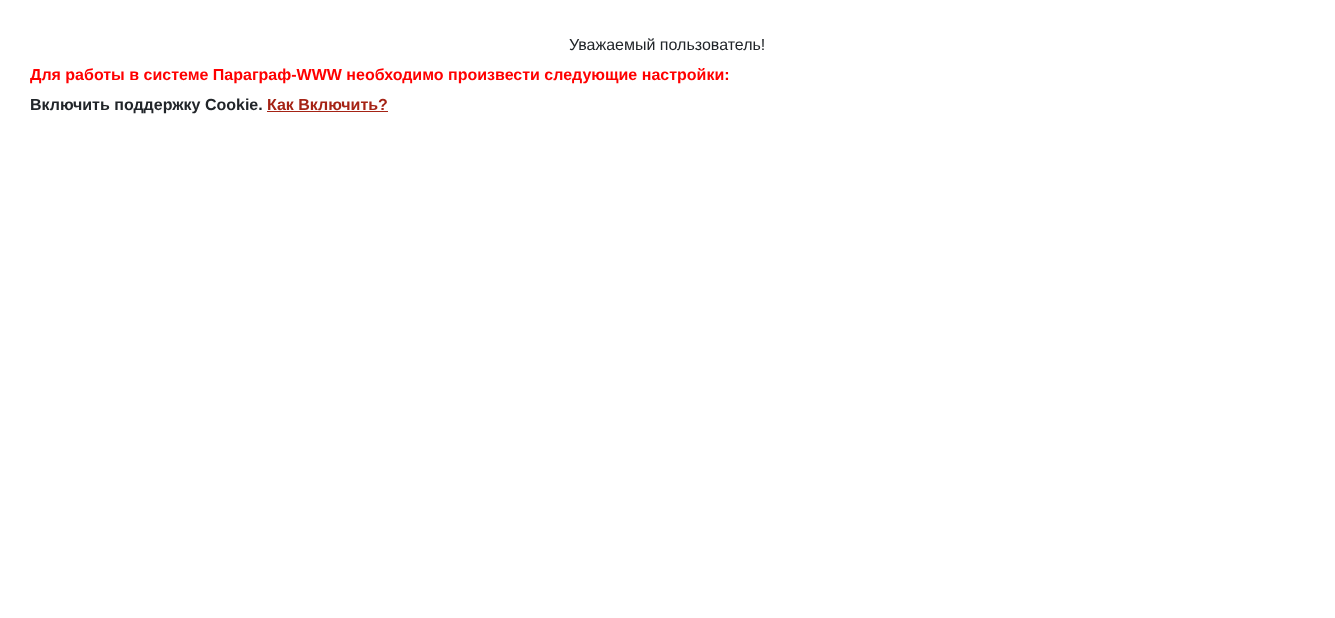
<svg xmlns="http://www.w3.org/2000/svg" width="1335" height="618">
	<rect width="100%" height="100%" fill="#FFFFFF" />
	<text x="569" y="50" font-family="Liberation Sans" font-size="16" fill="#212529">Уважаемый пользователь!</text>
	<text x="30" y="80" font-family="Liberation Sans" font-size="16" font-weight="700" fill="#FF0000">Для работы в системе Параграф-WWW необходимо произвести следующие настройки:</text>
	<text x="30" y="110" font-family="Liberation Sans" font-size="16" font-weight="700" fill="#212529">Включить поддержку Cookie.</text>
	<text x="267" y="110" font-family="Liberation Sans" font-size="16" font-weight="700" fill="#A52315">Как Включить?</text>
	<rect x="267" y="111" width="121" height="1" fill="#A52315" />
</svg>
